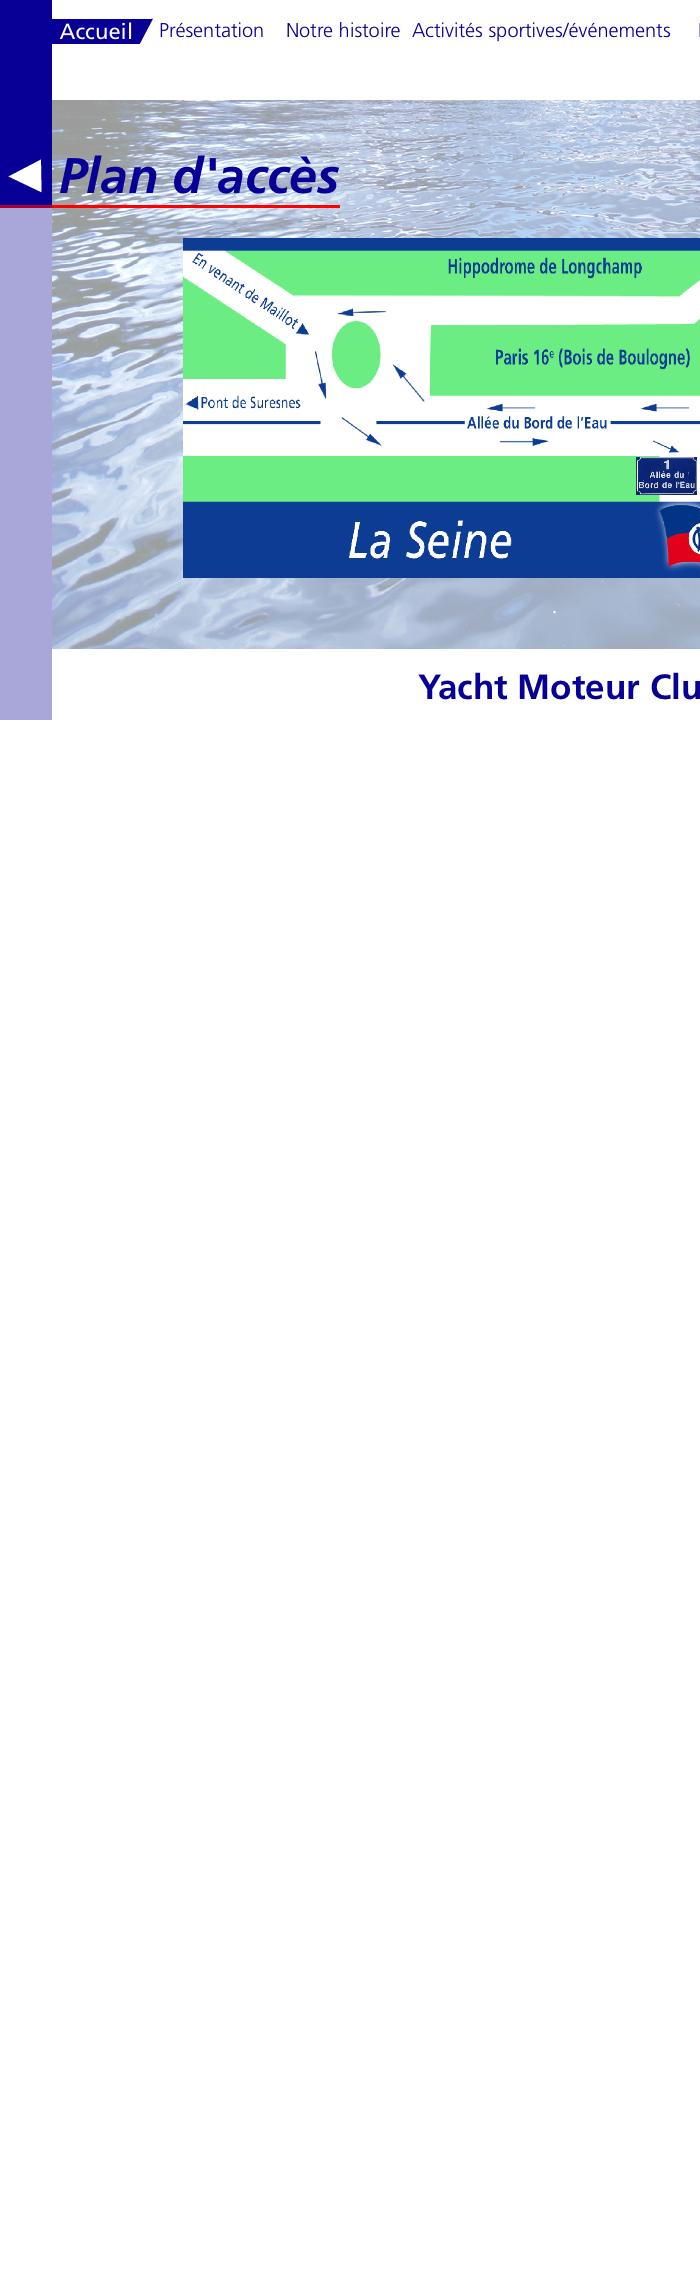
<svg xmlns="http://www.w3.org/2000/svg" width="700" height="2290">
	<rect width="100%" height="100%" fill="#FFFFFF" />
	<image x="0" y="0" width="700" height="720" href="assets/img1.png" />
</svg>
